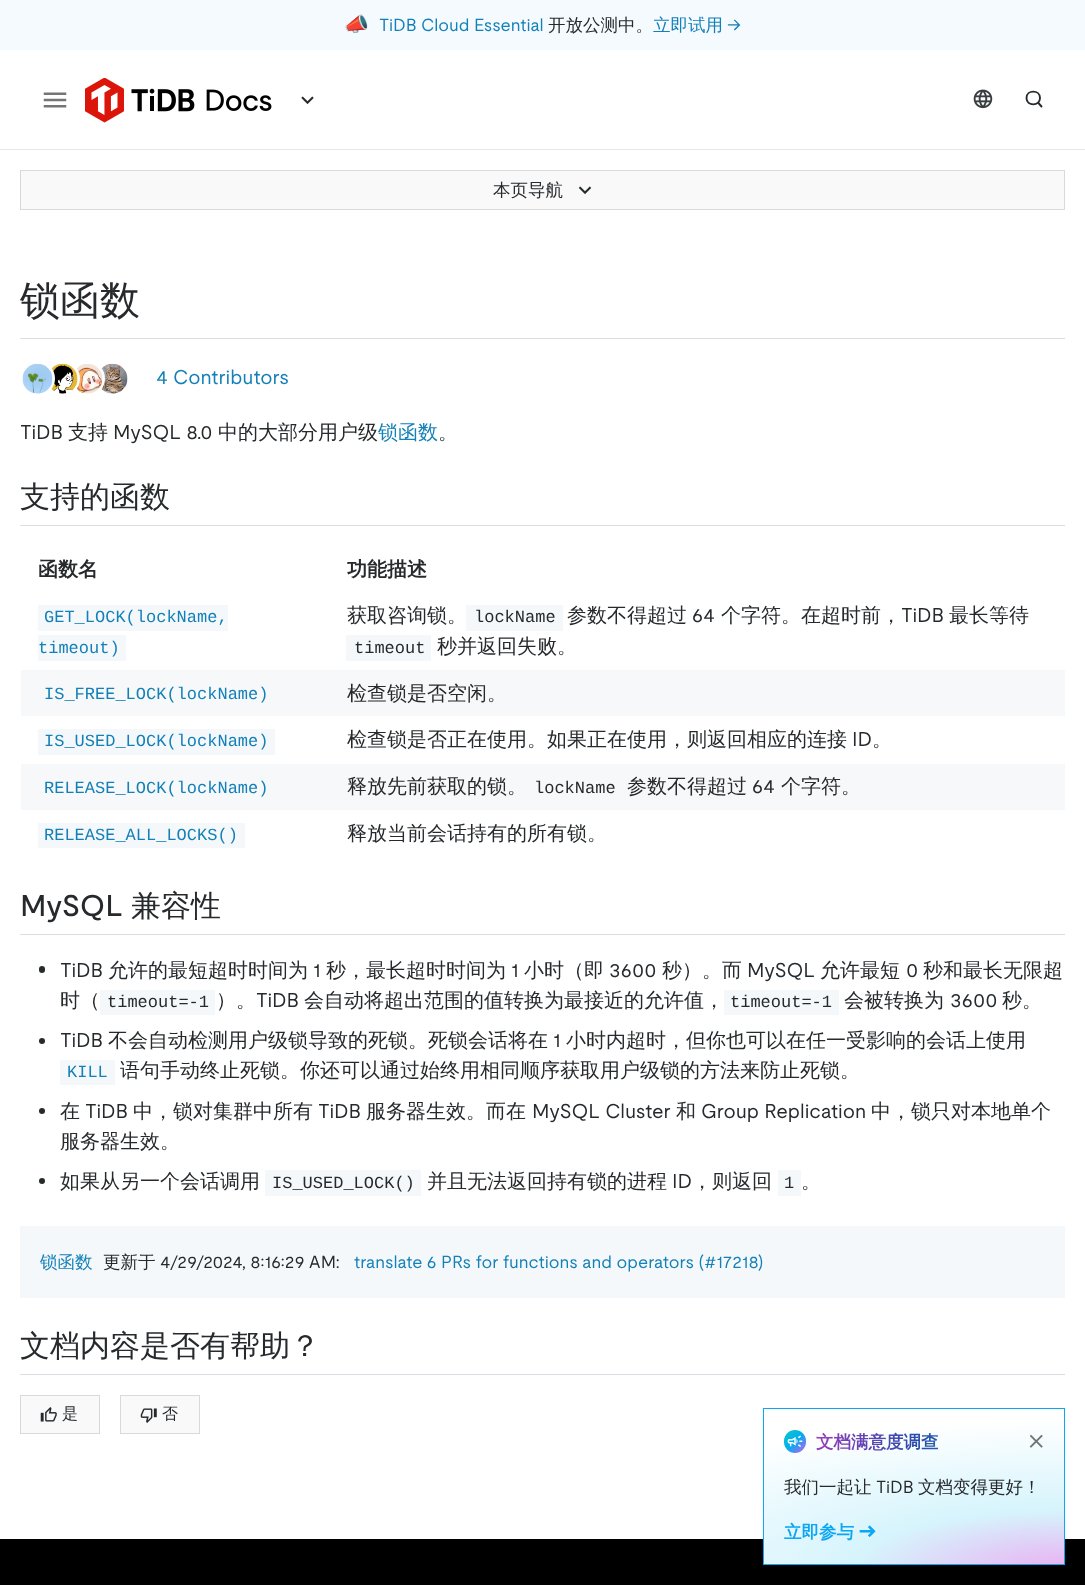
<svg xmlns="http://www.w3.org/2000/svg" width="1085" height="1585">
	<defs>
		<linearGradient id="g1" gradientUnits="userSpaceOnUse" x1="816" y1="1441" x2="1019" y2="1441"><stop offset="0" stop-color="#9A3CBB" /><stop offset="0.5" stop-color="#284DAB" /><stop offset="1" stop-color="#2D9BB7" /></linearGradient>
		<radialGradient id="g2" gradientUnits="userSpaceOnUse" cx="0" cy="0" r="1" gradientTransform="matrix(543 0 0 150 1069 1569)"><stop offset="0" stop-color="#E9B0F3" /><stop offset="0.39" stop-color="#D6F4FC" /><stop offset="1" stop-color="#FFFFFF" /></radialGradient>
		<linearGradient id="g3" gradientUnits="userSpaceOnUse" x1="784" y1="1430" x2="806" y2="1453"><stop offset="0" stop-color="#0FC7C7" /><stop offset="0.5" stop-color="#00AEEF" /><stop offset="1" stop-color="#CA5AF0" /></linearGradient>
	</defs>
	<rect width="100%" height="100%" fill="#FFFFFF" />
	<rect x="0" y="0" width="1085" height="50" fill="#F4FAFD" />
	<text x="344" y="31" font-family="Noto Color Emoji" font-size="20" fill="#262A2C">📣</text>
	<text x="379" y="31" font-family="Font" font-size="17.5" fill="#1480B8">TiDB Cloud Essential</text>
	<text x="548" y="31" font-family="WenQuanYi Zen Hei" font-size="17.5" font-weight="500" fill="#262A2C">开放公测中。</text>
	<text x="653" y="31" font-family="WenQuanYi Zen Hei" font-size="17.5" font-weight="500" fill="#1480B8">立即试用</text>
	<text x="727" y="31" font-family="Font" font-size="17.5" fill="#1480B8">→</text>
	<rect x="0" y="149" width="1085" height="1" fill="#E3E8EA" />
	<image x="43" y="92" width="24" height="16" href="assets/img1.png" />
	<image x="85" y="78" width="187" height="45" href="assets/img2.png" />
	<image x="301" y="96" width="13" height="9" href="assets/img3.png" />
	<image x="973" y="89" width="20" height="20" href="assets/img4.png" />
	<path d="M1041.5 106.5L1038 102.5M1040 98C1040 106.5 1026.5 106.5 1026.5 98C1026.5 89.5 1040 89.5 1040 98Z" fill="none" stroke="#262A2C" stroke-width="1.9" stroke-linecap="round" stroke-linejoin="round" />
	<rect x="20.5" y="170.5" width="1044" height="39" fill="#F9F9F9" stroke="#D9D9D9" />
	<text x="493" y="196" font-family="WenQuanYi Zen Hei" font-size="17.5" font-weight="500" fill="#262A2C">本页导航</text>
	<image x="578" y="186" width="14" height="8" href="assets/img5.png" />
	<rect x="20" y="338" width="1045" height="1" fill="#D8DEE4" />
	<text x="20" y="314" font-family="WenQuanYi Zen Hei" font-size="40" font-weight="500" fill="#262A2C">锁函数</text>
	<image x="100" y="363" width="28" height="31" href="assets/img9.png" />
	<circle cx="87.5" cy="378.5" r="16" fill="none" stroke="#FFFFFF" stroke-width="3" />
	<circle cx="88" cy="379" r="15" fill="#FFFFFF" />
	<image x="75" y="364" width="28" height="30" href="assets/img8.png" />
	<circle cx="62.5" cy="378.5" r="16" fill="none" stroke="#FFFFFF" stroke-width="3" />
	<circle cx="63" cy="379" r="15" fill="#FFFFFF" />
	<image x="50" y="363" width="28" height="31" href="assets/img7.png" />
	<circle cx="37.5" cy="378.5" r="16" fill="none" stroke="#FFFFFF" stroke-width="3" />
	<circle cx="38" cy="379" r="15" fill="#FFFFFF" />
	<image x="22" y="363" width="31" height="31" href="assets/img6.png" />
	<text x="156" y="384" font-family="Font" font-size="20" fill="#1480B8">4 Contributors</text>
	<text x="20" y="439" font-family="Font" font-size="20" fill="#262A2C">TiDB</text>
	<text x="68" y="439" font-family="WenQuanYi Zen Hei" font-size="20" font-weight="500" fill="#262A2C">支持</text>
	<text x="113" y="439" font-family="Font" font-size="20" fill="#262A2C">MySQL 8.0</text>
	<text x="218" y="439" font-family="WenQuanYi Zen Hei" font-size="20" font-weight="500" fill="#262A2C">中的大部分用户级</text>
	<text x="378" y="439" font-family="WenQuanYi Zen Hei" font-size="20" font-weight="500" fill="#1480B8">锁函数</text>
	<text x="438" y="439" font-family="WenQuanYi Zen Hei" font-size="20" font-weight="500" fill="#262A2C">。</text>
	<rect x="20" y="525" width="1045" height="1" fill="#D8DEE4" />
	<text x="20" y="507" font-family="WenQuanYi Zen Hei" font-size="30" font-weight="500" fill="#262A2C">支持的函数</text>
	<g font-family="WenQuanYi Zen Hei" font-size="20" font-weight="700" fill="#262A2C">
		<text x="38" y="576">函数名</text>
		<text x="347" y="576">功能描述</text>
	</g>
	<rect x="38" y="605" width="190" height="26" fill="#F5F8FA" />
	<text x="44" y="622" font-family="Liberation Mono" font-size="17" fill="#1480B8">GET_LOCK(lockName,</text>
	<rect x="38" y="635" width="88" height="26" fill="#F5F8FA" />
	<text x="38" y="653" font-family="Liberation Mono" font-size="17" fill="#1480B8">timeout)</text>
	<text x="347" y="622" font-family="WenQuanYi Zen Hei" font-size="20" font-weight="500" fill="#262A2C">获取咨询锁。</text>
	<rect x="466" y="605" width="97" height="26" fill="#F5F8FA" />
	<text x="474" y="622" font-family="Liberation Mono" font-size="17" fill="#262A2C">lockName</text>
	<text x="567" y="622" font-family="WenQuanYi Zen Hei" font-size="20" font-weight="500" fill="#262A2C">参数不得超过</text>
	<text x="692" y="622" font-family="Font" font-size="20" fill="#262A2C">64</text>
	<text x="721" y="622" font-family="WenQuanYi Zen Hei" font-size="20" font-weight="500" fill="#262A2C">个字符。在超时前，</text>
	<text x="901" y="622" font-family="Font" font-size="20" fill="#262A2C">TiDB</text>
	<text x="949" y="622" font-family="WenQuanYi Zen Hei" font-size="20" font-weight="500" fill="#262A2C">最长等待</text>
	<rect x="346" y="635" width="85" height="26" fill="#F5F8FA" />
	<text x="354" y="653" font-family="Liberation Mono" font-size="17" fill="#262A2C">timeout</text>
	<text x="437" y="653" font-family="WenQuanYi Zen Hei" font-size="20" font-weight="500" fill="#262A2C">秒并返回失败。</text>
	<rect x="21" y="670" width="1044" height="46" fill="#F6F8FA" />
	<text x="44" y="699" font-family="Liberation Mono" font-size="17" fill="#1480B8">IS_FREE_LOCK(lockName)</text>
	<text x="347" y="700" font-family="WenQuanYi Zen Hei" font-size="20" font-weight="500" fill="#262A2C">检查锁是否空闲。</text>
	<rect x="38" y="729" width="237" height="26" fill="#F5F8FA" />
	<text x="44" y="746" font-family="Liberation Mono" font-size="17" fill="#1480B8">IS_USED_LOCK(lockName)</text>
	<text x="347" y="746" font-family="WenQuanYi Zen Hei" font-size="20" font-weight="500" fill="#262A2C">检查锁是否正在使用。如果正在使用，则返回相应的连接</text>
	<text x="852" y="746" font-family="Font" font-size="20" fill="#262A2C">ID</text>
	<text x="872" y="746" font-family="WenQuanYi Zen Hei" font-size="20" font-weight="500" fill="#262A2C">。</text>
	<rect x="21" y="764" width="1044" height="46" fill="#F6F8FA" />
	<text x="44" y="793" font-family="Liberation Mono" font-size="17" fill="#1480B8">RELEASE_LOCK(lockName)</text>
	<text x="347" y="793" font-family="WenQuanYi Zen Hei" font-size="20" font-weight="500" fill="#262A2C">释放先前获取的锁。</text>
	<text x="534" y="793" font-family="Liberation Mono" font-size="17" fill="#262A2C">lockName</text>
	<text x="627" y="793" font-family="WenQuanYi Zen Hei" font-size="20" font-weight="500" fill="#262A2C">参数不得超过</text>
	<text x="752" y="793" font-family="Font" font-size="20" fill="#262A2C">64</text>
	<text x="781" y="793" font-family="WenQuanYi Zen Hei" font-size="20" font-weight="500" fill="#262A2C">个字符。</text>
	<rect x="38" y="823" width="207" height="25" fill="#F5F8FA" />
	<text x="44" y="840" font-family="Liberation Mono" font-size="17" fill="#1480B8">RELEASE_ALL_LOCKS()</text>
	<text x="347" y="840" font-family="WenQuanYi Zen Hei" font-size="20" font-weight="500" fill="#262A2C">释放当前会话持有的所有锁。</text>
	<rect x="20" y="934" width="1045" height="1" fill="#D8DEE4" />
	<text x="20" y="916" font-family="Font" font-size="30" font-weight="500" fill="#262A2C">MySQL</text>
	<text x="131" y="916" font-family="WenQuanYi Zen Hei" font-size="30" font-weight="500" fill="#262A2C">兼容性</text>
	<rect x="39" y="966" width="6" height="7" rx="3" fill="#262A2C" />
	<text x="60" y="977" font-family="Font" font-size="20" fill="#262A2C">TiDB</text>
	<text x="108" y="977" font-family="WenQuanYi Zen Hei" font-size="20" font-weight="500" fill="#262A2C">允许的最短超时时间为</text>
	<text x="313" y="977" font-family="Font" font-size="20" fill="#262A2C">1</text>
	<text x="326" y="977" font-family="WenQuanYi Zen Hei" font-size="20" font-weight="500" fill="#262A2C">秒，最长超时时间为</text>
	<text x="511" y="977" font-family="Font" font-size="20" fill="#262A2C">1</text>
	<text x="524" y="977" font-family="WenQuanYi Zen Hei" font-size="20" font-weight="500" fill="#262A2C">小时（即</text>
	<text x="609" y="977" font-family="Font" font-size="20" fill="#262A2C">3600</text>
	<text x="662" y="977" font-family="WenQuanYi Zen Hei" font-size="20" font-weight="500" fill="#262A2C">秒）。而</text>
	<text x="747" y="977" font-family="Font" font-size="20" fill="#262A2C">MySQL</text>
	<text x="820" y="977" font-family="WenQuanYi Zen Hei" font-size="20" font-weight="500" fill="#262A2C">允许最短</text>
	<text x="906" y="977" font-family="Font" font-size="20" fill="#262A2C">0</text>
	<g font-family="WenQuanYi Zen Hei" font-size="20" font-weight="500" fill="#262A2C">
		<text x="923" y="977">秒和最长无限超</text>
		<text x="60" y="1007">时（</text>
	</g>
	<rect x="100" y="990" width="115" height="25" fill="#F5F8FA" />
	<text x="107" y="1007" font-family="Liberation Mono" font-size="17" fill="#262A2C">timeout=-1</text>
	<text x="216" y="1007" font-family="WenQuanYi Zen Hei" font-size="20" font-weight="500" fill="#262A2C">）。</text>
	<text x="256" y="1007" font-family="Font" font-size="20" fill="#262A2C">TiDB</text>
	<text x="304" y="1007" font-family="WenQuanYi Zen Hei" font-size="20" font-weight="500" fill="#262A2C">会自动将超出范围的值转换为最接近的允许值，</text>
	<rect x="724" y="990" width="115" height="25" fill="#F5F8FA" />
	<text x="730" y="1007" font-family="Liberation Mono" font-size="17" fill="#262A2C">timeout=-1</text>
	<text x="844" y="1007" font-family="WenQuanYi Zen Hei" font-size="20" font-weight="500" fill="#262A2C">会被转换为</text>
	<text x="950" y="1007" font-family="Font" font-size="20" fill="#262A2C">3600</text>
	<text x="1002" y="1007" font-family="WenQuanYi Zen Hei" font-size="20" font-weight="500" fill="#262A2C">秒。</text>
	<circle cx="42" cy="1041" r="3" fill="#262A2C" />
	<text x="60" y="1047" font-family="Font" font-size="20" fill="#262A2C">TiDB</text>
	<text x="108" y="1047" font-family="WenQuanYi Zen Hei" font-size="20" font-weight="500" fill="#262A2C">不会自动检测用户级锁导致的死锁。死锁会话将在</text>
	<text x="553" y="1047" font-family="Font" font-size="20" fill="#262A2C">1</text>
	<text x="566" y="1047" font-family="WenQuanYi Zen Hei" font-size="20" font-weight="500" fill="#262A2C">小时内超时，但你也可以在任一受影响的会话上使用</text>
	<rect x="60" y="1060" width="55" height="25" fill="#F5F8FA" />
	<text x="67" y="1077" font-family="Liberation Mono" font-size="17" fill="#1480B8">KILL</text>
	<text x="120" y="1077" font-family="WenQuanYi Zen Hei" font-size="20" font-weight="500" fill="#262A2C">语句手动终止死锁。你还可以通过始终用相同顺序获取用户级锁的方法来防止死锁。</text>
	<circle cx="42" cy="1111" r="3" fill="#262A2C" />
	<text x="60" y="1118" font-family="WenQuanYi Zen Hei" font-size="20" font-weight="500" fill="#262A2C">在</text>
	<text x="85" y="1118" font-family="Font" font-size="20" fill="#262A2C">TiDB</text>
	<text x="133" y="1118" font-family="WenQuanYi Zen Hei" font-size="20" font-weight="500" fill="#262A2C">中，锁对集群中所有</text>
	<text x="318" y="1118" font-family="Font" font-size="20" fill="#262A2C">TiDB</text>
	<text x="366" y="1118" font-family="WenQuanYi Zen Hei" font-size="20" font-weight="500" fill="#262A2C">服务器生效。而在</text>
	<text x="532" y="1118" font-family="Font" font-size="20" fill="#262A2C">MySQL Cluster</text>
	<text x="676" y="1118" font-family="WenQuanYi Zen Hei" font-size="20" font-weight="500" fill="#262A2C">和</text>
	<text x="701" y="1118" font-family="Font" font-size="20" fill="#262A2C">Group Replication</text>
	<g font-family="WenQuanYi Zen Hei" font-size="20" font-weight="500" fill="#262A2C">
		<text x="871" y="1118">中，锁只对本地单个</text>
		<text x="60" y="1148">服务器生效。</text>
	</g>
	<circle cx="42" cy="1181" r="3" fill="#262A2C" />
	<text x="60" y="1188" font-family="WenQuanYi Zen Hei" font-size="20" font-weight="500" fill="#262A2C">如果从另一个会话调用</text>
	<rect x="265" y="1170" width="156" height="26" fill="#F5F8FA" />
	<text x="272" y="1188" font-family="Liberation Mono" font-size="17" fill="#262A2C">IS_USED_LOCK()</text>
	<text x="427" y="1188" font-family="WenQuanYi Zen Hei" font-size="20" font-weight="500" fill="#262A2C">并且无法返回持有锁的进程</text>
	<text x="672" y="1188" font-family="Font" font-size="20" fill="#262A2C">ID</text>
	<text x="692" y="1188" font-family="WenQuanYi Zen Hei" font-size="20" font-weight="500" fill="#262A2C">，则返回</text>
	<rect x="778" y="1170" width="23" height="26" fill="#F5F8FA" />
	<text x="784" y="1188" font-family="Liberation Mono" font-size="17" fill="#262A2C">1</text>
	<text x="801" y="1188" font-family="WenQuanYi Zen Hei" font-size="20" font-weight="500" fill="#262A2C">。</text>
	<rect x="20" y="1226" width="1045" height="72" fill="#F5F8FA" />
	<text x="40" y="1268" font-family="WenQuanYi Zen Hei" font-size="17.5" font-weight="500" fill="#1480B8">锁函数</text>
	<text x="103" y="1268" font-family="WenQuanYi Zen Hei" font-size="17.5" font-weight="500" fill="#262A2C">更新于</text>
	<text x="160" y="1268" font-family="Font" font-size="17.5" fill="#262A2C">4/29/2024, 8:16:29 AM:</text>
	<text x="354" y="1268" font-family="Font" font-size="17.5" fill="#1480B8">translate 6 PRs for functions and operators (#17218)</text>
	<rect x="20" y="1374" width="1045" height="1" fill="#D8DEE4" />
	<text x="20" y="1356" font-family="WenQuanYi Zen Hei" font-size="30" font-weight="500" fill="#262A2C">文档内容是否有帮助？</text>
	<rect x="20.5" y="1395.5" width="79" height="38" fill="#F9F9F9" stroke="#D9D9D9" />
	<image x="40" y="1407" width="17" height="15" href="assets/img10.png" />
	<text x="62" y="1419" font-family="WenQuanYi Zen Hei" font-size="16" font-weight="500" fill="#262A2C">是</text>
	<rect x="120.5" y="1395.5" width="79" height="38" fill="#F9F9F9" stroke="#D9D9D9" />
	<image x="140" y="1408" width="17" height="15" href="assets/img11.png" />
	<text x="162" y="1419" font-family="WenQuanYi Zen Hei" font-size="16" font-weight="500" fill="#262A2C">否</text>
	<rect x="0" y="1539" width="1085" height="46" fill="#000000" />
	<rect x="763" y="1410" width="302" height="158" fill="#000000" fill-opacity="0.04" filter="blur(2.5px)" />
	<rect x="764" y="1409" width="300" height="155" fill="url(#g2)" />
	<rect x="763.5" y="1408.5" width="301" height="156" fill="none" stroke="#0CA6F2" />
	<rect x="784" y="1430" width="22" height="23" rx="11" fill="url(#g3)" />
	<image x="787" y="1435" width="16" height="12" href="assets/img12.png" />
	<text x="816" y="1448" font-family="WenQuanYi Zen Hei" font-size="17.5" font-weight="700" fill="url(#g1)">文档满意度调查</text>
	<image x="1029" y="1434" width="14" height="14" href="assets/img13.png" />
	<text x="784" y="1493" font-family="WenQuanYi Zen Hei" font-size="17.5" font-weight="500" fill="#262A2C">我们一起让</text>
	<text x="876" y="1493" font-family="Font" font-size="17.5" fill="#262A2C">TiDB</text>
	<text x="918" y="1493" font-family="WenQuanYi Zen Hei" font-size="17.5" font-weight="500" fill="#262A2C">文档变得更好！</text>
	<text x="784" y="1538" font-family="WenQuanYi Zen Hei" font-size="17.5" font-weight="700" fill="#0CA6F2">立即参与</text>
	<image x="859" y="1525" width="17" height="12" href="assets/img14.png" />
</svg>
